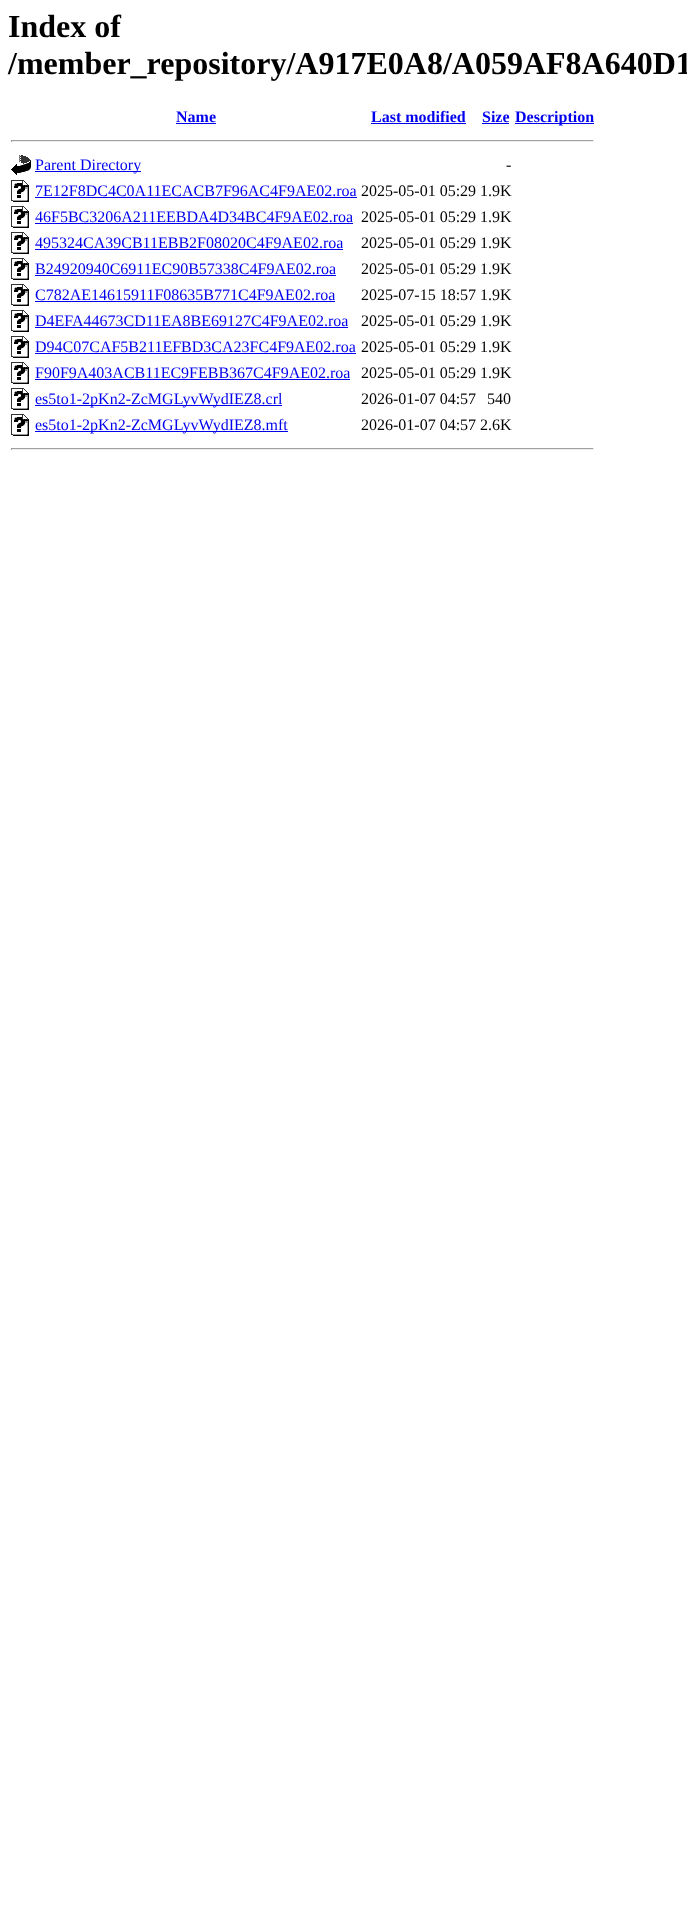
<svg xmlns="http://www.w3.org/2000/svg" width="687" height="1927">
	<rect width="100%" height="100%" fill="#FFFFFF" />
	<g font-family="Liberation Serif" font-size="32" font-weight="700" fill="#000000">
		<text x="8" y="37">Index of</text>
		<text x="8" y="74">/member_repository/A917E0A8/A059AF8A640D1</text>
	</g>
	<text x="176" y="122" font-family="Liberation Serif" font-size="16" font-weight="700" fill="#0000EE">Name</text>
	<rect x="176" y="123" width="40" height="1" fill="#0000EE" />
	<text x="371" y="122" font-family="Liberation Serif" font-size="16" font-weight="700" fill="#0000EE">Last modified</text>
	<rect x="371" y="123" width="95" height="1" fill="#0000EE" />
	<text x="482" y="122" font-family="Liberation Serif" font-size="16" font-weight="700" fill="#0000EE">Size</text>
	<rect x="482" y="123" width="27" height="1" fill="#0000EE" />
	<rect x="515" y="123" width="79" height="1" fill="#0000EE" />
	<text x="515" y="122" font-family="Liberation Serif" font-size="16" font-weight="700" fill="#0000EE">Description</text>
	<rect x="11" y="140" width="583" height="1" fill="#9F9F9F" />
	<rect x="593" y="140" width="1" height="2" fill="#EEEEEE" />
	<rect x="11" y="141" width="583" height="1" fill="#EEEEEE" />
	<rect x="11" y="140" width="1" height="2" fill="#9F9F9F" />
	<image x="11" y="155" width="20" height="20" href="assets/img1.png" />
	<rect x="35" y="171" width="106" height="1" fill="#0000EE" />
	<text x="35" y="170" font-family="Liberation Serif" font-size="16" fill="#0000EE">Parent Directory</text>
	<text x="506" y="170" font-family="Liberation Serif" font-size="16" fill="#000000">-</text>
	<image x="11" y="180" width="18" height="22" href="assets/img2.png" />
	<text x="35" y="196" font-family="Liberation Serif" font-size="16" fill="#0000EE">7E12F8DC4C0A11ECACB7F96AC4F9AE02.roa</text>
	<rect x="35" y="197" width="322" height="1" fill="#0000EE" />
	<text x="361" y="196" font-family="Liberation Serif" font-size="16" fill="#000000">2025-05-01 05:29 1.9K</text>
	<image x="11" y="206" width="18" height="22" href="assets/img2.png" />
	<text x="35" y="222" font-family="Liberation Serif" font-size="16" fill="#0000EE">46F5BC3206A211EEBDA4D34BC4F9AE02.roa</text>
	<rect x="35" y="223" width="318" height="1" fill="#0000EE" />
	<text x="361" y="222" font-family="Liberation Serif" font-size="16" fill="#000000">2025-05-01 05:29 1.9K</text>
	<image x="11" y="232" width="18" height="22" href="assets/img2.png" />
	<text x="35" y="248" font-family="Liberation Serif" font-size="16" fill="#0000EE">495324CA39CB11EBB2F08020C4F9AE02.roa</text>
	<rect x="35" y="249" width="308" height="1" fill="#0000EE" />
	<text x="361" y="248" font-family="Liberation Serif" font-size="16" fill="#000000">2025-05-01 05:29 1.9K</text>
	<image x="11" y="258" width="18" height="22" href="assets/img2.png" />
	<text x="35" y="274" font-family="Liberation Serif" font-size="16" fill="#0000EE">B24920940C6911EC90B57338C4F9AE02.roa</text>
	<rect x="35" y="275" width="301" height="1" fill="#0000EE" />
	<text x="361" y="274" font-family="Liberation Serif" font-size="16" fill="#000000">2025-05-01 05:29 1.9K</text>
	<image x="11" y="284" width="18" height="22" href="assets/img2.png" />
	<text x="35" y="300" font-family="Liberation Serif" font-size="16" fill="#0000EE">C782AE14615911F08635B771C4F9AE02.roa</text>
	<rect x="35" y="301" width="300" height="1" fill="#0000EE" />
	<text x="361" y="300" font-family="Liberation Serif" font-size="16" fill="#000000">2025-07-15 18:57 1.9K</text>
	<image x="11" y="310" width="18" height="22" href="assets/img2.png" />
	<text x="35" y="326" font-family="Liberation Serif" font-size="16" fill="#0000EE">D4EFA44673CD11EA8BE69127C4F9AE02.roa</text>
	<rect x="35" y="327" width="313" height="1" fill="#0000EE" />
	<text x="361" y="326" font-family="Liberation Serif" font-size="16" fill="#000000">2025-05-01 05:29 1.9K</text>
	<image x="11" y="336" width="18" height="22" href="assets/img2.png" />
	<text x="35" y="352" font-family="Liberation Serif" font-size="16" fill="#0000EE">D94C07CAF5B211EFBD3CA23FC4F9AE02.roa</text>
	<rect x="35" y="353" width="321" height="1" fill="#0000EE" />
	<text x="361" y="352" font-family="Liberation Serif" font-size="16" fill="#000000">2025-05-01 05:29 1.9K</text>
	<image x="11" y="362" width="18" height="22" href="assets/img2.png" />
	<text x="35" y="378" font-family="Liberation Serif" font-size="16" fill="#0000EE">F90F9A403ACB11EC9FEBB367C4F9AE02.roa</text>
	<rect x="35" y="379" width="315" height="1" fill="#0000EE" />
	<text x="361" y="378" font-family="Liberation Serif" font-size="16" fill="#000000">2025-05-01 05:29 1.9K</text>
	<image x="11" y="388" width="18" height="22" href="assets/img2.png" />
	<rect x="35" y="405" width="247" height="1" fill="#0000EE" />
	<text x="35" y="404" font-family="Liberation Serif" font-size="16" fill="#0000EE">es5to1-2pKn2-ZcMGLyvWydIEZ8.crl</text>
	<g font-family="Liberation Serif" font-size="16" fill="#000000">
		<text x="361" y="404">2026-01-07 04:57</text>
		<text x="487" y="404">540</text>
	</g>
	<image x="11" y="414" width="18" height="22" href="assets/img2.png" />
	<rect x="35" y="431" width="253" height="1" fill="#0000EE" />
	<text x="35" y="430" font-family="Liberation Serif" font-size="16" fill="#0000EE">es5to1-2pKn2-ZcMGLyvWydIEZ8.mft</text>
	<text x="361" y="430" font-family="Liberation Serif" font-size="16" fill="#000000">2026-01-07 04:57 2.6K</text>
	<rect x="11" y="448" width="583" height="1" fill="#9F9F9F" />
	<rect x="593" y="448" width="1" height="2" fill="#EEEEEE" />
	<rect x="11" y="449" width="583" height="1" fill="#EEEEEE" />
	<rect x="11" y="448" width="1" height="2" fill="#9F9F9F" />
</svg>
